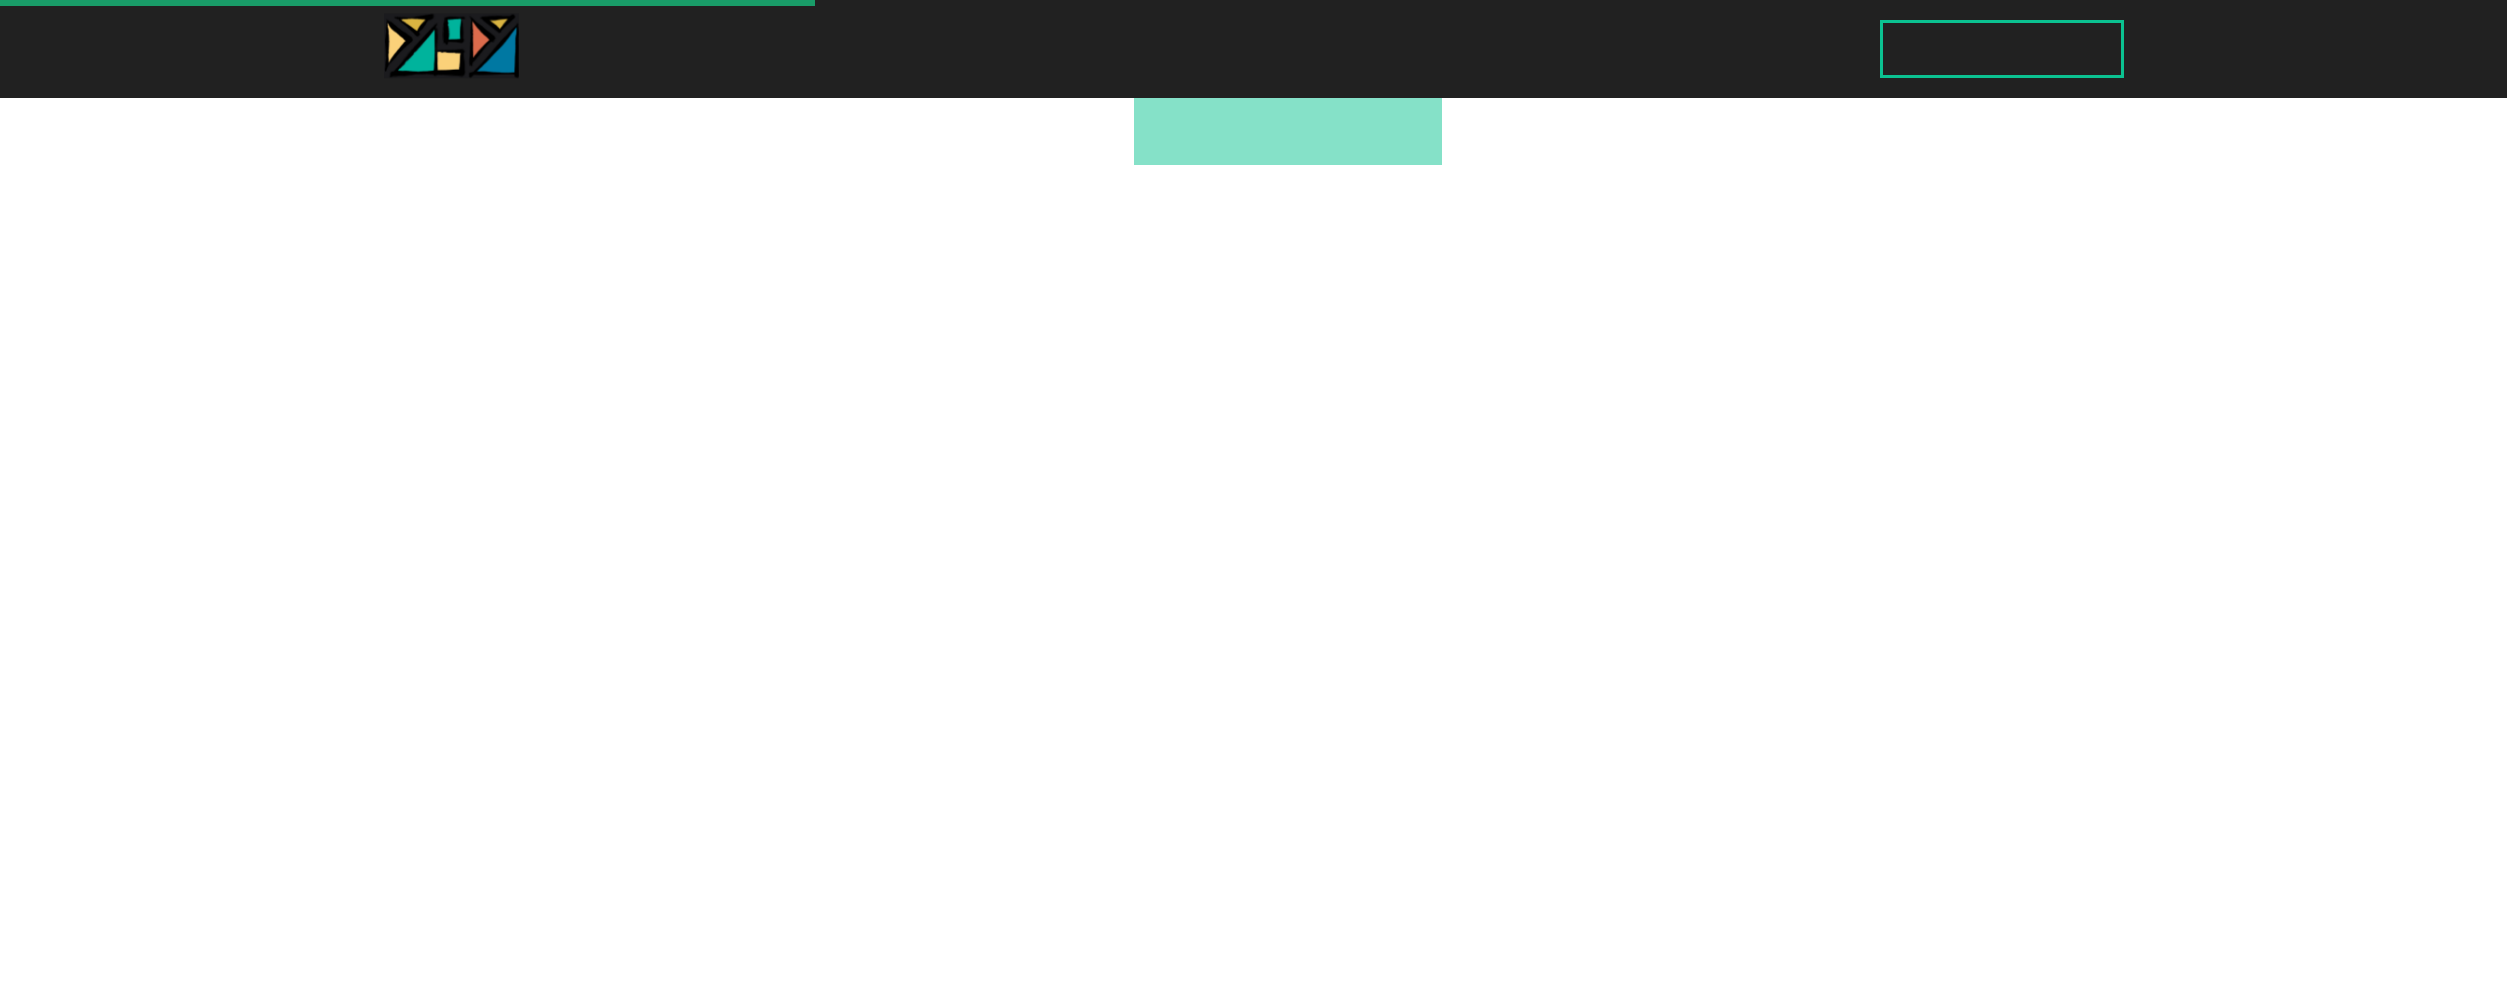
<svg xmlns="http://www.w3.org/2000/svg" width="2507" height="982">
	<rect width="100%" height="100%" fill="#FFFFFF" />
	<rect x="0" y="0" width="2507" height="98" fill="#212121" />
	<image x="384" y="13" width="135" height="66" href="assets/img1.png" />
	<rect x="1881.5" y="21.5" width="241" height="55" fill="none" stroke="#0BC291" stroke-width="3" />
	<rect x="0" y="0" width="815" height="6" fill="#199C68" />
	<rect x="1134" y="98" width="308" height="67" fill="#85E1C8" />
</svg>
